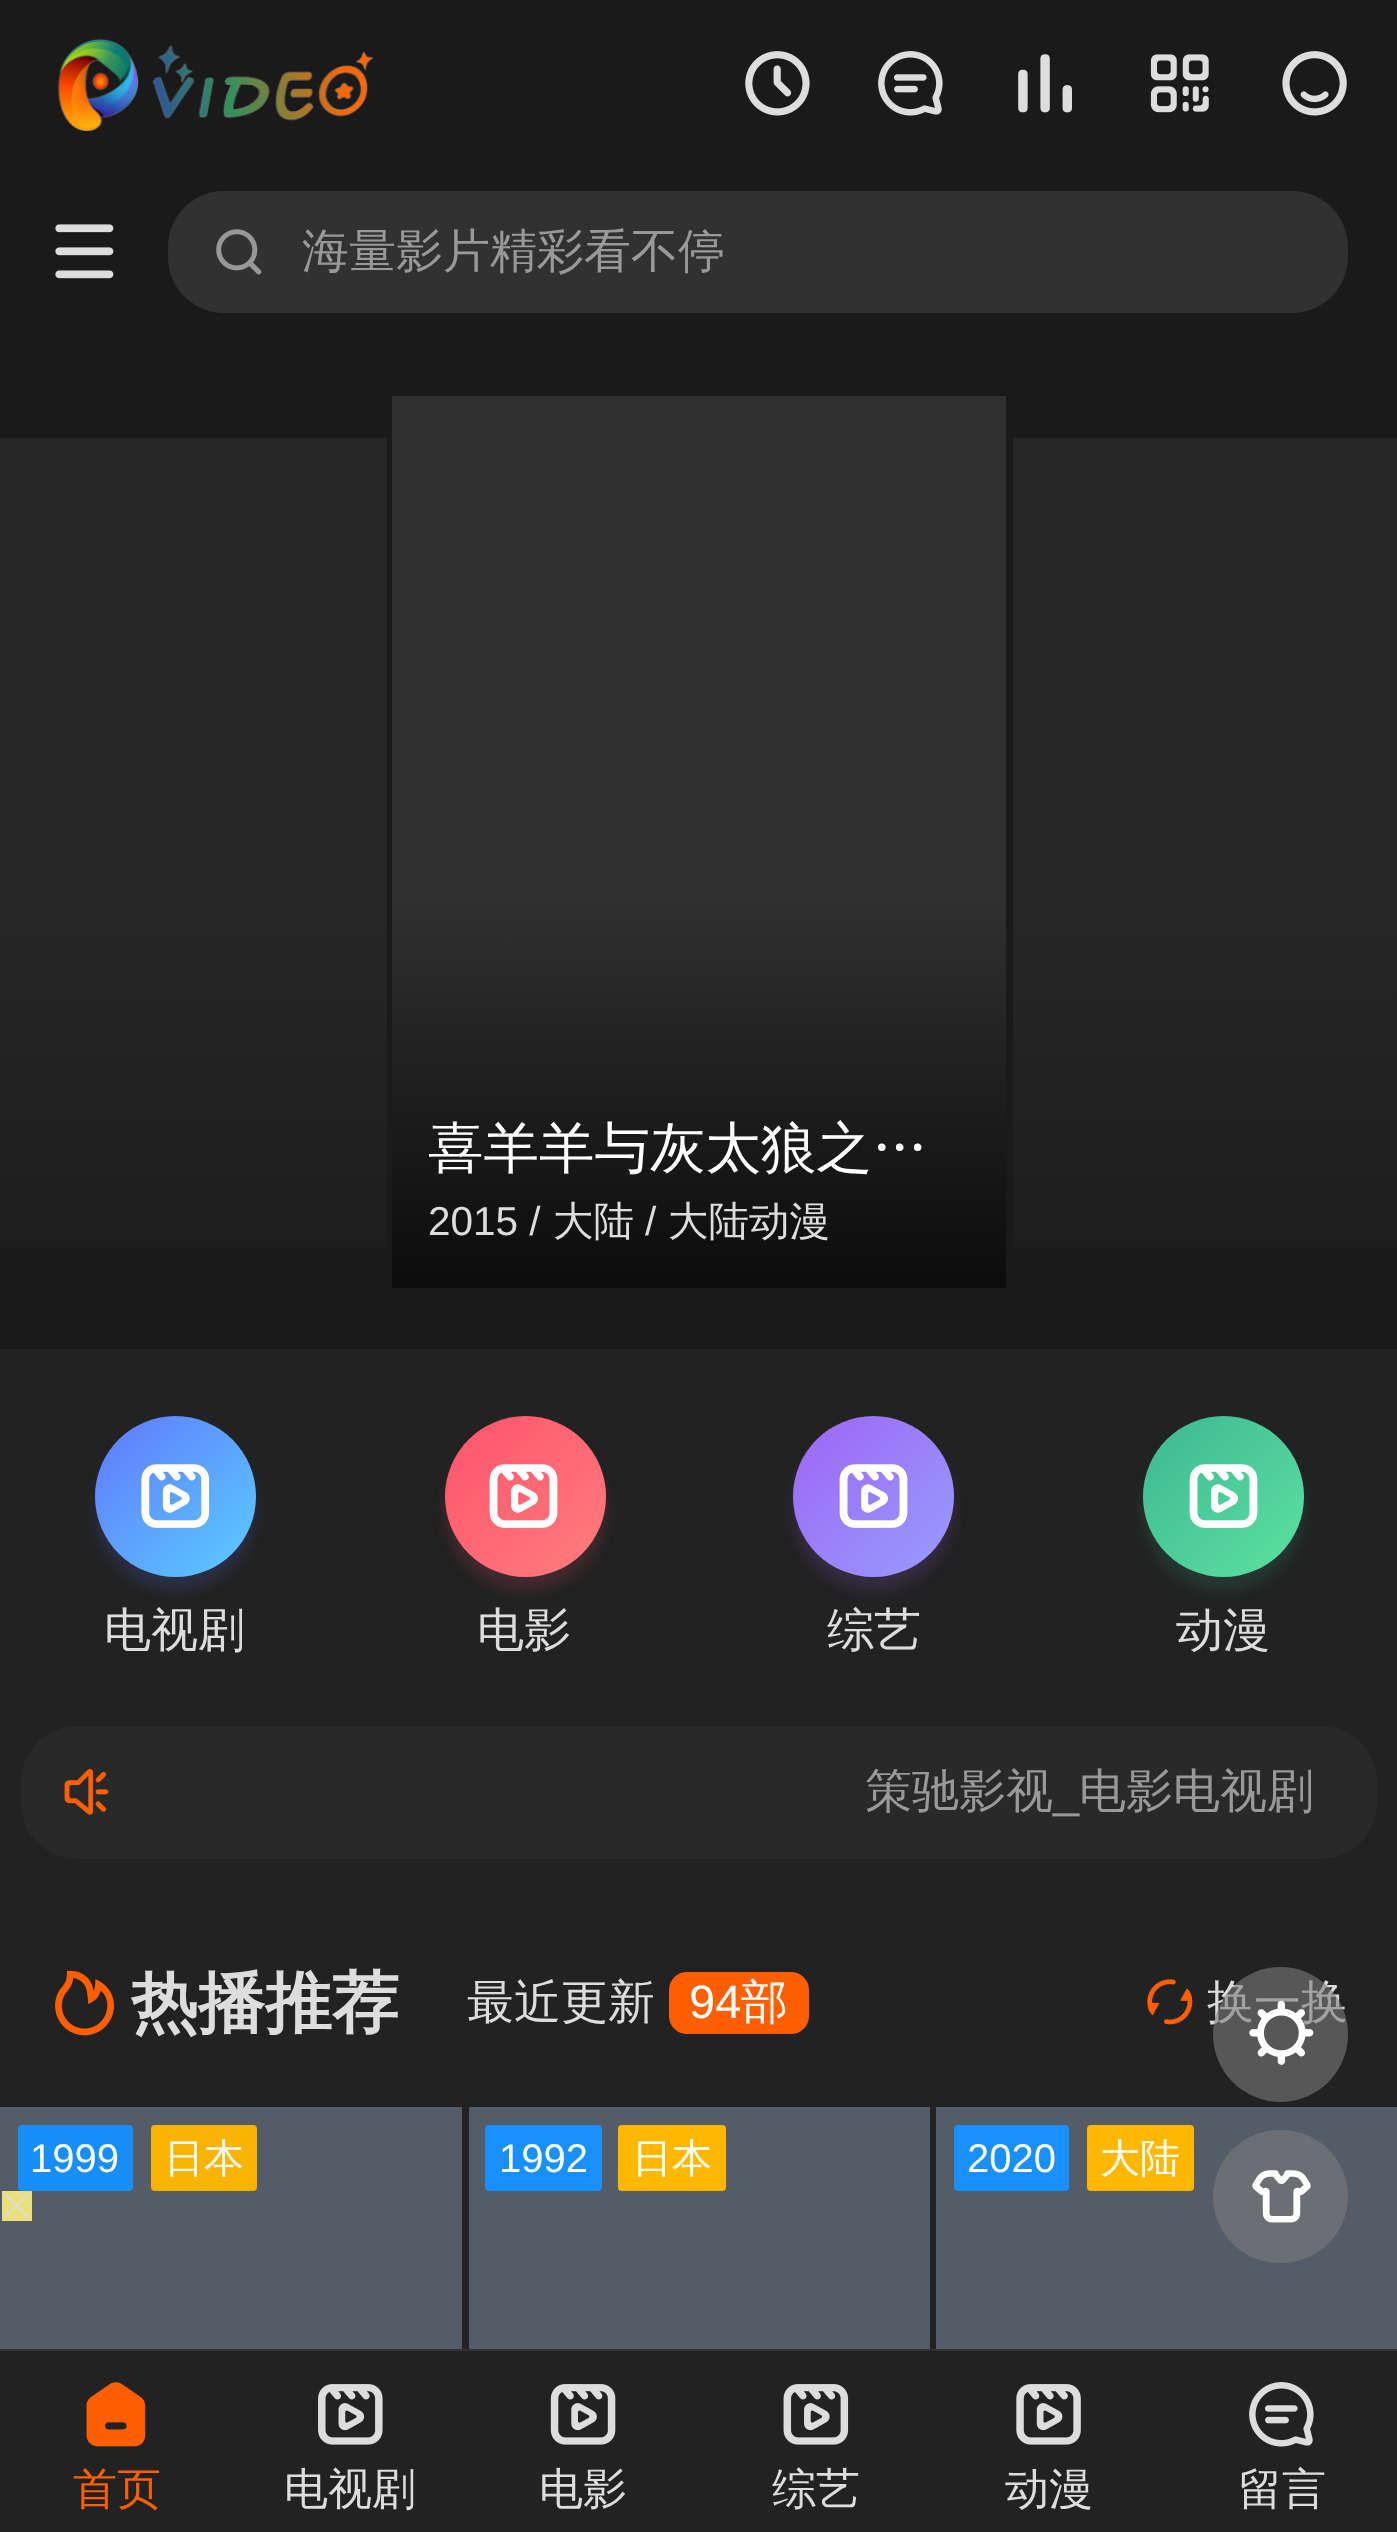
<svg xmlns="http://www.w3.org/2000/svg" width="1397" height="2532">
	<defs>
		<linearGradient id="g1" gradientUnits="userSpaceOnUse" x1="106" y1="895" x2="106" y2="1265"><stop offset="0" stop-color="#272727" /><stop offset="1" stop-color="#1D1D1D" /></linearGradient>
		<linearGradient id="g2" gradientUnits="userSpaceOnUse" x1="699" y1="900" x2="699" y2="1307"><stop offset="0" stop-color="#303030" /><stop offset="1" stop-color="#0A0A0A" /></linearGradient>
		<linearGradient id="g3" gradientUnits="userSpaceOnUse" x1="1292" y1="895" x2="1292" y2="1265"><stop offset="0" stop-color="#272727" /><stop offset="1" stop-color="#1D1D1D" /></linearGradient>
		<linearGradient id="g4" gradientUnits="userSpaceOnUse" x1="256" y1="1577" x2="95" y2="1416"><stop offset="0" stop-color="#59CEFF" /><stop offset="1" stop-color="#6177FF" /></linearGradient>
		<linearGradient id="g5" gradientUnits="userSpaceOnUse" x1="606" y1="1577" x2="445" y2="1416"><stop offset="0" stop-color="#FF7E7E" /><stop offset="1" stop-color="#FF536B" /></linearGradient>
		<linearGradient id="g6" gradientUnits="userSpaceOnUse" x1="954" y1="1577" x2="793" y2="1416"><stop offset="0" stop-color="#979DFF" /><stop offset="1" stop-color="#9E65F3" /></linearGradient>
		<linearGradient id="g7" gradientUnits="userSpaceOnUse" x1="1304" y1="1577" x2="1143" y2="1416"><stop offset="0" stop-color="#5CE29F" /><stop offset="1" stop-color="#3DB794" /></linearGradient>
	</defs>
	<rect width="100%" height="100%" fill="#222222" />
	<rect x="0" y="0" width="1397" height="1349" fill="#1A1A1A" />
	<image x="57" y="39" width="317" height="92" href="assets/img1.png" />
	<image x="745" y="51" width="65" height="65" href="assets/img2.png" />
	<image x="878" y="51" width="65" height="65" href="assets/img3.png" />
	<image x="1018" y="54" width="54" height="59" href="assets/img4.png" />
	<image x="1150" y="54" width="59" height="59" href="assets/img5.png" />
	<image x="1282" y="51" width="65" height="65" href="assets/img6.png" />
	<image x="55" y="224" width="59" height="55" href="assets/img7.png" />
	<rect x="168" y="191" width="1180" height="122" rx="56" fill="#313131" />
	<image x="216" y="229" width="46" height="46" href="assets/img8.png" />
	<text x="302" y="267" font-family="WenQuanYi Zen Hei" font-size="47" font-weight="500" fill="#999999">海量影片精彩看不停</text>
	<rect x="0" y="438" width="387" height="456" fill="#272727" />
	<rect x="0" y="894" width="387" height="354" fill="url(#g1)" />
	<rect x="392" y="396" width="614" height="504" fill="#303030" />
	<rect x="392" y="900" width="614" height="388" fill="url(#g2)" />
	<text x="428" y="1167" font-family="WenQuanYi Zen Hei" font-size="55.5" font-weight="500" fill="#FFFFFF">喜羊羊与灰太狼之…</text>
	<text x="428" y="1235" font-family="Liberation Sans" font-size="40.5" fill="#DDDDDD">2015 /</text>
	<text x="553" y="1235" font-family="WenQuanYi Zen Hei" font-size="40.5" font-weight="500" fill="#DDDDDD">大陆</text>
	<text x="645" y="1235" font-family="Liberation Sans" font-size="40.5" fill="#DDDDDD">/</text>
	<text x="668" y="1235" font-family="WenQuanYi Zen Hei" font-size="40.5" font-weight="500" fill="#DDDDDD">大陆动漫</text>
	<rect x="1013" y="438" width="384" height="456" fill="#272727" />
	<rect x="1013" y="894" width="384" height="354" fill="url(#g3)" />
	<rect x="95" y="1430" width="161" height="161" rx="80.5" fill="#6177FF" fill-opacity="0.15" filter="blur(6.5px)" />
	<circle cx="175.5" cy="1496.5" r="80.5" fill="url(#g4)" />
	<image x="141" y="1464" width="69" height="64" href="assets/img9.png" />
	<text x="104" y="1646" font-family="WenQuanYi Zen Hei" font-size="47" font-weight="500" fill="#DDDDDD">电视剧</text>
	<rect x="445" y="1430" width="161" height="161" rx="80.5" fill="#FF536B" fill-opacity="0.15" filter="blur(6.5px)" />
	<circle cx="525.5" cy="1496.5" r="80.5" fill="url(#g5)" />
	<image x="489" y="1464" width="69" height="64" href="assets/img10.png" />
	<text x="477" y="1646" font-family="WenQuanYi Zen Hei" font-size="47" font-weight="500" fill="#DDDDDD">电影</text>
	<rect x="793" y="1430" width="161" height="161" rx="80.5" fill="#9E65F3" fill-opacity="0.15" filter="blur(6.5px)" />
	<circle cx="873.5" cy="1496.5" r="80.5" fill="url(#g6)" />
	<image x="839" y="1464" width="69" height="64" href="assets/img11.png" />
	<text x="827" y="1646" font-family="WenQuanYi Zen Hei" font-size="47" font-weight="500" fill="#DDDDDD">综艺</text>
	<rect x="1143" y="1430" width="161" height="161" rx="80.5" fill="#3DB794" fill-opacity="0.15" filter="blur(6.5px)" />
	<circle cx="1223.5" cy="1496.5" r="80.5" fill="url(#g7)" />
	<image x="1189" y="1464" width="69" height="64" href="assets/img12.png" />
	<text x="1176" y="1646" font-family="WenQuanYi Zen Hei" font-size="47" font-weight="500" fill="#DDDDDD">动漫</text>
	<rect x="21" y="1726" width="1356" height="133" rx="56" fill="#292929" />
	<image x="64" y="1769" width="45" height="46" href="assets/img13.png" />
	<g font-family="WenQuanYi Zen Hei" font-size="47" font-weight="500" fill="#999999">
		<text x="865" y="1807">策驰影视</text>
		<text x="1079" y="1807">电影电视剧</text>
	</g>
	<text x="1053" y="1807" font-family="Liberation Sans" font-size="47" fill="#999999">_</text>
	<image x="55" y="1970" width="59" height="66" href="assets/img14.png" />
	<text x="131" y="2026" font-family="WenQuanYi Zen Hei" font-size="67" font-weight="700" fill="#DDDDDD">热播推荐</text>
	<text x="467" y="2018" font-family="WenQuanYi Zen Hei" font-size="47" font-weight="500" fill="#DDDDDD">最近更新</text>
	<rect x="669" y="1972" width="140" height="62" rx="18" fill="#FF5F00" />
	<text x="689" y="2018" font-family="Liberation Sans" font-size="47" fill="#FFFFFF">94</text>
	<text x="741" y="2018" font-family="WenQuanYi Zen Hei" font-size="47" font-weight="500" fill="#FFFFFF">部</text>
	<image x="1147" y="1979" width="46" height="46" href="assets/img15.png" />
	<text x="1207" y="2018" font-family="WenQuanYi Zen Hei" font-size="47" font-weight="500" fill="#DDDDDD">换一换</text>
	<rect x="0" y="2107" width="462" height="242" fill="#545C67" />
	<rect x="18" y="2125" width="115" height="66" rx="4" fill="#188EF9" />
	<text x="30" y="2172" font-family="Liberation Sans" font-size="40" fill="#F9F9F9">1999</text>
	<rect x="151" y="2125" width="106" height="66" rx="4" fill="#F9B400" />
	<text x="164" y="2172" font-family="WenQuanYi Zen Hei" font-size="40" font-weight="500" fill="#F9F9F9">日本</text>
	<rect x="469" y="2107" width="461" height="242" fill="#545C67" />
	<rect x="485" y="2125" width="117" height="66" rx="4" fill="#1890FF" />
	<text x="499" y="2172" font-family="Liberation Sans" font-size="40" fill="#FFFFFF">1992</text>
	<rect x="618" y="2125" width="108" height="66" rx="4" fill="#FFB800" />
	<text x="632" y="2172" font-family="WenQuanYi Zen Hei" font-size="40" font-weight="500" fill="#FFFFFF">日本</text>
	<rect x="936" y="2107" width="461" height="242" fill="#545C67" />
	<rect x="954" y="2125" width="115" height="66" rx="4" fill="#1890FF" />
	<text x="967" y="2172" font-family="Liberation Sans" font-size="40" fill="#FFFFFF">2020</text>
	<rect x="1087" y="2125" width="107" height="66" rx="4" fill="#FFB800" />
	<text x="1100" y="2172" font-family="WenQuanYi Zen Hei" font-size="40" font-weight="500" fill="#FFFFFF">大陆</text>
	<rect x="2" y="2191" width="30" height="30" fill="#EADF7D" />
	<path d="M6.5 2194.5L28 2216L26.5 2217L5.5 2196Z" fill="#DDDDDD" />
	<path d="M5.5 2216L26.5 2194.5L28 2196L6.5 2217Z" fill="#DDDDDD" />
	<circle cx="1280.5" cy="2034.5" r="67.5" fill="#7B7B7B" fill-opacity="0.6" />
	<image x="1249" y="2000" width="65" height="65" href="assets/img16.png" />
	<rect x="1213" y="2130" width="135" height="133" rx="66.5" fill="#6B6F73" />
	<image x="1252" y="2170" width="59" height="53" href="assets/img17.png" />
	<rect x="0" y="2349" width="1397" height="2" fill="#323232" />
	<image x="86" y="2382" width="60" height="65" href="assets/img18.png" />
	<text x="73" y="2504" font-family="WenQuanYi Zen Hei" font-size="44" font-weight="500" fill="#FF5F00">首页</text>
	<image x="318" y="2384" width="65" height="61" href="assets/img19.png" />
	<text x="284" y="2504" font-family="WenQuanYi Zen Hei" font-size="44" font-weight="500" fill="#DDDDDD">电视剧</text>
	<image x="550" y="2384" width="66" height="61" href="assets/img20.png" />
	<text x="539" y="2504" font-family="WenQuanYi Zen Hei" font-size="44" font-weight="500" fill="#DDDDDD">电影</text>
	<image x="783" y="2384" width="66" height="61" href="assets/img21.png" />
	<text x="772" y="2504" font-family="WenQuanYi Zen Hei" font-size="44" font-weight="500" fill="#DDDDDD">综艺</text>
	<image x="1016" y="2384" width="65" height="61" href="assets/img22.png" />
	<text x="1005" y="2504" font-family="WenQuanYi Zen Hei" font-size="44" font-weight="500" fill="#DDDDDD">动漫</text>
	<image x="1249" y="2382" width="65" height="65" href="assets/img23.png" />
	<text x="1238" y="2504" font-family="WenQuanYi Zen Hei" font-size="44" font-weight="500" fill="#DDDDDD">留言</text>
</svg>
